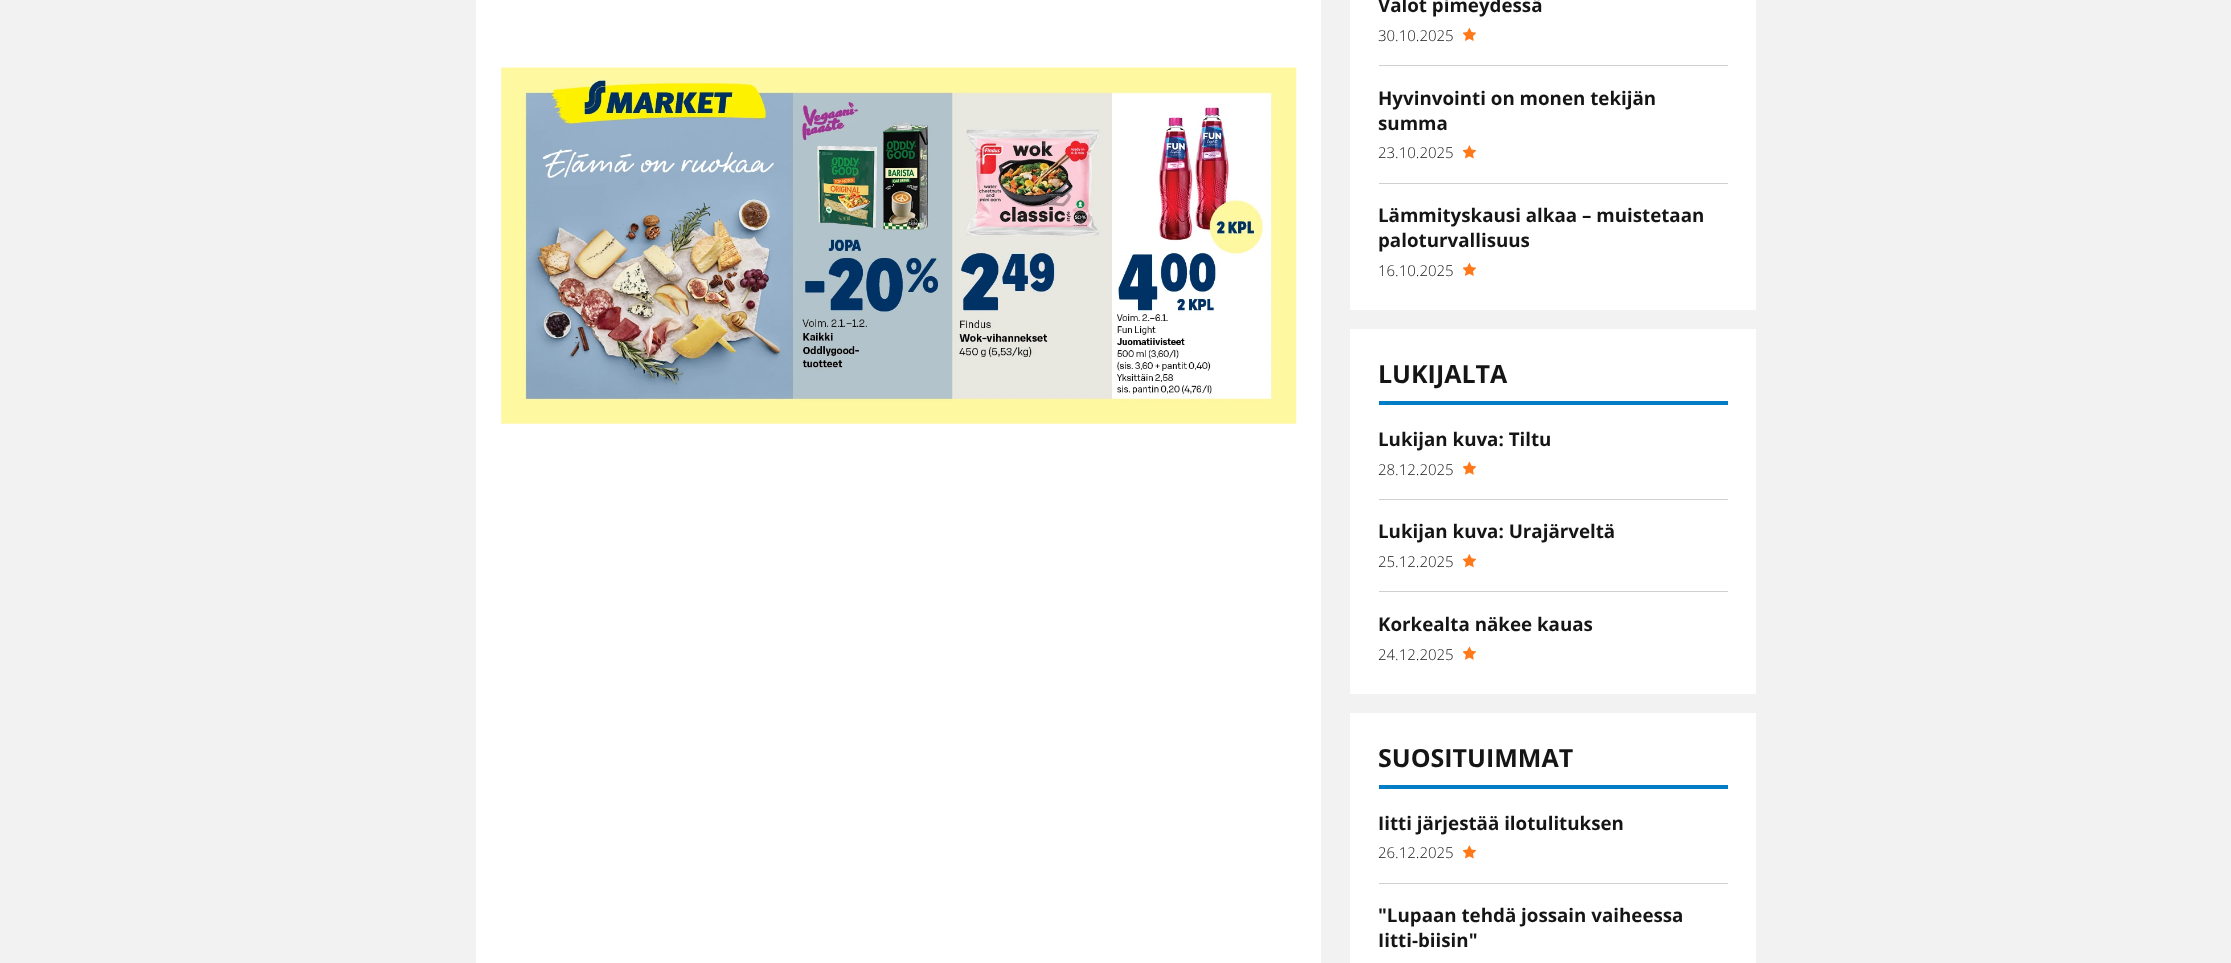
<svg xmlns="http://www.w3.org/2000/svg" width="2231" height="963">
	<rect width="100%" height="100%" fill="#F2F2F2" />
	<rect x="476" y="0" width="845" height="963" fill="#FFFFFF" />
	<image x="501" y="67" width="796" height="357" href="assets/img1.png" />
	<rect x="1350" y="0" width="406" height="310" fill="#FFFFFF" />
	<rect x="1379" y="65" width="349" height="1" fill="#D1D1D1" />
	<text x="1378" y="12" font-family="Open Sans" font-size="18.75" font-weight="700" fill="#151515">Valot pimeydessä</text>
	<text x="1378" y="41" font-family="Open Sans" font-size="15" font-weight="300" fill="#151515">30.10.2025</text>
	<image x="1463" y="28" width="13" height="13" href="assets/img2.png" />
	<rect x="1379" y="183" width="349" height="1" fill="#D1D1D1" />
	<g font-family="Open Sans" font-size="18.75" font-weight="700" fill="#151515">
		<text x="1378" y="105">Hyvinvointi on monen tekijän</text>
		<text x="1378" y="130">summa</text>
	</g>
	<text x="1378" y="158" font-family="Open Sans" font-size="15" font-weight="300" fill="#151515">23.10.2025</text>
	<image x="1463" y="145" width="13" height="14" href="assets/img3.png" />
	<g font-family="Open Sans" font-size="18.75" font-weight="700" fill="#151515">
		<text x="1378" y="222">Lämmityskausi alkaa – muistetaan</text>
		<text x="1378" y="247">paloturvallisuus</text>
	</g>
	<text x="1378" y="276" font-family="Open Sans" font-size="15" font-weight="300" fill="#151515">16.10.2025</text>
	<image x="1463" y="263" width="13" height="13" href="assets/img2.png" />
	<rect x="1350" y="329" width="406" height="365" fill="#FFFFFF" />
	<rect x="1379" y="401" width="349" height="4" fill="#017DC5" />
	<text x="1378" y="383" font-family="Open Sans" font-size="25" font-weight="700" fill="#151515">LUKIJALTA</text>
	<rect x="1379" y="499" width="349" height="1" fill="#D1D1D1" />
	<text x="1378" y="446" font-family="Open Sans" font-size="18.75" font-weight="700" fill="#151515">Lukijan kuva: Tiltu</text>
	<text x="1378" y="475" font-family="Open Sans" font-size="15" font-weight="300" fill="#151515">28.12.2025</text>
	<image x="1463" y="461" width="13" height="14" href="assets/img4.png" />
	<rect x="1379" y="591" width="349" height="1" fill="#D1D1D1" />
	<text x="1378" y="538" font-family="Open Sans" font-size="18.75" font-weight="700" fill="#151515">Lukijan kuva: Urajärveltä</text>
	<text x="1378" y="567" font-family="Open Sans" font-size="15" font-weight="300" fill="#151515">25.12.2025</text>
	<image x="1463" y="554" width="13" height="14" href="assets/img5.png" />
	<text x="1378" y="631" font-family="Open Sans" font-size="18.75" font-weight="700" fill="#151515">Korkealta näkee kauas</text>
	<text x="1378" y="660" font-family="Open Sans" font-size="15" font-weight="300" fill="#151515">24.12.2025</text>
	<image x="1463" y="646" width="13" height="14" href="assets/img4.png" />
	<rect x="1350" y="713" width="406" height="250" fill="#FFFFFF" />
	<rect x="1379" y="785" width="349" height="4" fill="#017DC5" />
	<text x="1378" y="767" font-family="Open Sans" font-size="25" font-weight="700" fill="#151515">SUOSITUIMMAT</text>
	<rect x="1379" y="883" width="349" height="1" fill="#D1D1D1" />
	<text x="1378" y="830" font-family="Open Sans" font-size="18.75" font-weight="700" fill="#151515">Iitti järjestää ilotulituksen</text>
	<text x="1378" y="858" font-family="Open Sans" font-size="15" font-weight="300" fill="#151515">26.12.2025</text>
	<image x="1463" y="845" width="13" height="14" href="assets/img3.png" />
	<g font-family="Open Sans" font-size="18.75" font-weight="700" fill="#151515">
		<text x="1378" y="922">"Lupaan tehdä jossain vaiheessa</text>
		<text x="1378" y="947">Iitti-biisin"</text>
	</g>
</svg>
